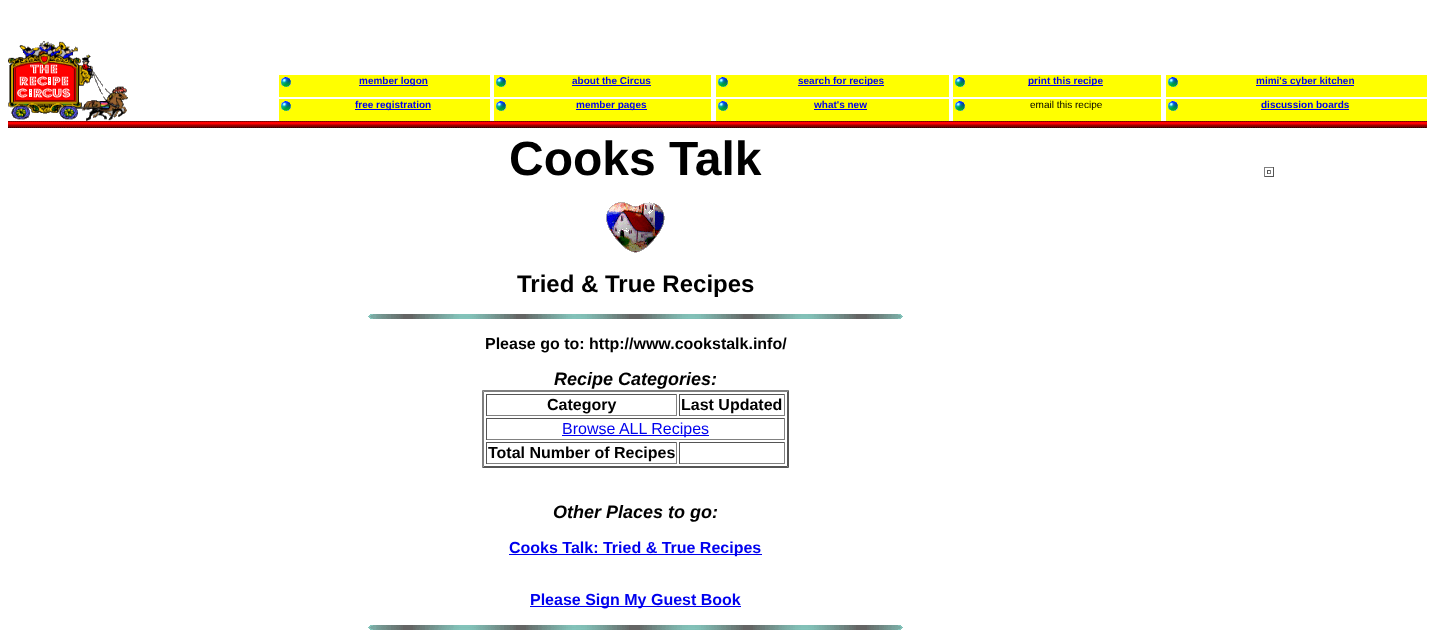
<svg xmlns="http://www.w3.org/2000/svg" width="1435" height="637">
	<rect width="100%" height="100%" fill="#FFFFFF" />
	<image x="8" y="41" width="120" height="80" href="assets/img1.png" />
	<rect x="279" y="75" width="211" height="22" fill="#FFFF00" />
	<image x="281" y="77" width="10" height="10" href="assets/img2.png" />
	<rect x="359" y="85" width="69" height="1" fill="#0000EE" />
	<text x="359" y="84" font-family="Liberation Sans" font-size="10" font-weight="700" fill="#0000EE">member logon</text>
	<rect x="494" y="75" width="217" height="22" fill="#FFFF00" />
	<image x="496" y="77" width="10" height="10" href="assets/img2.png" />
	<text x="572" y="84" font-family="Liberation Sans" font-size="10" font-weight="700" fill="#0000EE">about the Circus</text>
	<rect x="572" y="85" width="79" height="1" fill="#0000EE" />
	<rect x="716" y="75" width="233" height="22" fill="#FFFF00" />
	<image x="718" y="77" width="10" height="10" href="assets/img2.png" />
	<rect x="798" y="85" width="86" height="1" fill="#0000EE" />
	<text x="798" y="84" font-family="Liberation Sans" font-size="10" font-weight="700" fill="#0000EE">search for recipes</text>
	<rect x="953" y="75" width="208" height="22" fill="#FFFF00" />
	<image x="955" y="77" width="10" height="10" href="assets/img2.png" />
	<rect x="1028" y="85" width="75" height="1" fill="#0000EE" />
	<text x="1028" y="84" font-family="Liberation Sans" font-size="10" font-weight="700" fill="#0000EE">print this recipe</text>
	<rect x="1166" y="75" width="261" height="22" fill="#FFFF00" />
	<image x="1168" y="77" width="10" height="10" href="assets/img2.png" />
	<rect x="1256" y="85" width="98" height="1" fill="#0000EE" />
	<text x="1256" y="84" font-family="Liberation Sans" font-size="10" font-weight="700" fill="#0000EE">mimi's cyber kitchen</text>
	<rect x="279" y="99" width="211" height="22" fill="#FFFF00" />
	<image x="281" y="101" width="10" height="10" href="assets/img2.png" />
	<rect x="355" y="109" width="76" height="1" fill="#0000EE" />
	<text x="355" y="108" font-family="Liberation Sans" font-size="10" font-weight="700" fill="#0000EE">free registration</text>
	<rect x="494" y="99" width="217" height="22" fill="#FFFF00" />
	<image x="496" y="101" width="10" height="10" href="assets/img2.png" />
	<rect x="576" y="109" width="71" height="1" fill="#0000EE" />
	<text x="576" y="108" font-family="Liberation Sans" font-size="10" font-weight="700" fill="#0000EE">member pages</text>
	<rect x="716" y="99" width="233" height="22" fill="#FFFF00" />
	<image x="718" y="101" width="10" height="10" href="assets/img2.png" />
	<text x="814" y="108" font-family="Liberation Sans" font-size="10" font-weight="700" fill="#0000EE">what's new</text>
	<rect x="814" y="109" width="53" height="1" fill="#0000EE" />
	<rect x="953" y="99" width="208" height="22" fill="#FFFF00" />
	<image x="955" y="101" width="10" height="10" href="assets/img2.png" />
	<text x="1030" y="108" font-family="Liberation Sans" font-size="10" fill="#000000">email this recipe</text>
	<rect x="1166" y="99" width="261" height="22" fill="#FFFF00" />
	<image x="1168" y="101" width="10" height="10" href="assets/img2.png" />
	<text x="1261" y="108" font-family="Liberation Sans" font-size="10" font-weight="700" fill="#0000EE">discussion boards</text>
	<rect x="1261" y="109" width="88" height="1" fill="#0000EE" />
	<image x="8" y="121" width="1419" height="7" href="assets/img3.png" />
	<text x="509" y="175" font-family="Liberation Sans" font-size="48" font-weight="700" fill="#000000">Cooks Talk</text>
	<image x="606" y="202" width="59" height="51" href="assets/img4.png" />
	<text x="517" y="292" font-family="Liberation Sans" font-size="24" font-weight="700" fill="#000000">Tried &amp; True Recipes</text>
	<image x="368" y="314" width="535" height="5" href="assets/img5.png" />
	<text x="485" y="349" font-family="Liberation Sans" font-size="16" font-weight="700" fill="#000000">Please go to: http://www.cookstalk.info/</text>
	<text x="554" y="385" font-family="Liberation Sans" font-size="18" font-weight="700" font-style="italic" fill="#000000">Recipe Categories:</text>
	<path d="M482 390H789L787 392H484Z" fill="#808080" />
	<path d="M789 390V468L787 466V392Z" fill="#555555" />
	<path d="M789 468H482L484 466H787Z" fill="#555555" />
	<path d="M482 468V390L484 392V466Z" fill="#808080" />
	<rect x="486" y="394" width="191" height="1" fill="#555555" />
	<rect x="676" y="394" width="1" height="22" fill="#808080" />
	<rect x="486" y="415" width="191" height="1" fill="#808080" />
	<rect x="486" y="394" width="1" height="22" fill="#555555" />
	<text x="547" y="410" font-family="Liberation Sans" font-size="16" font-weight="700" fill="#000000">Category</text>
	<rect x="679" y="394" width="106" height="1" fill="#555555" />
	<rect x="784" y="394" width="1" height="22" fill="#808080" />
	<rect x="679" y="415" width="106" height="1" fill="#808080" />
	<rect x="679" y="394" width="1" height="22" fill="#555555" />
	<text x="681" y="410" font-family="Liberation Sans" font-size="16" font-weight="700" fill="#000000">Last Updated</text>
	<rect x="486" y="418" width="299" height="1" fill="#555555" />
	<rect x="784" y="418" width="1" height="22" fill="#808080" />
	<rect x="486" y="439" width="299" height="1" fill="#808080" />
	<rect x="486" y="418" width="1" height="22" fill="#555555" />
	<rect x="562" y="435" width="147" height="1" fill="#0000EE" />
	<text x="562" y="434" font-family="Liberation Sans" font-size="16" fill="#0000EE">Browse ALL Recipes</text>
	<rect x="486" y="442" width="191" height="1" fill="#555555" />
	<rect x="676" y="442" width="1" height="22" fill="#808080" />
	<rect x="486" y="463" width="191" height="1" fill="#808080" />
	<rect x="486" y="442" width="1" height="22" fill="#555555" />
	<text x="488" y="458" font-family="Liberation Sans" font-size="16" font-weight="700" fill="#000000">Total Number of Recipes</text>
	<rect x="679" y="442" width="106" height="1" fill="#555555" />
	<rect x="784" y="442" width="1" height="22" fill="#808080" />
	<rect x="679" y="463" width="106" height="1" fill="#808080" />
	<rect x="679" y="442" width="1" height="22" fill="#555555" />
	<text x="553" y="518" font-family="Liberation Sans" font-size="18" font-weight="700" font-style="italic" fill="#000000">Other Places to go:</text>
	<rect x="509" y="554" width="253" height="1" fill="#0000EE" />
	<text x="509" y="553" font-family="Liberation Sans" font-size="16" font-weight="700" fill="#0000EE">Cooks Talk: Tried &amp; True Recipes</text>
	<rect x="530" y="606" width="211" height="1" fill="#0000EE" />
	<text x="530" y="605" font-family="Liberation Sans" font-size="16" font-weight="700" fill="#0000EE">Please Sign My Guest Book</text>
	<image x="368" y="625" width="535" height="5" href="assets/img5.png" />
	<rect x="1264" y="167" width="10" height="1" fill="#808080" />
	<rect x="1273" y="167" width="1" height="10" fill="#555555" />
	<rect x="1264" y="176" width="10" height="1" fill="#555555" />
	<rect x="1264" y="167" width="1" height="10" fill="#808080" />
	<rect x="1267" y="170" width="4" height="1" fill="#555555" />
	<rect x="1270" y="170" width="1" height="4" fill="#808080" />
	<rect x="1267" y="173" width="4" height="1" fill="#808080" />
	<rect x="1267" y="170" width="1" height="4" fill="#555555" />
</svg>
